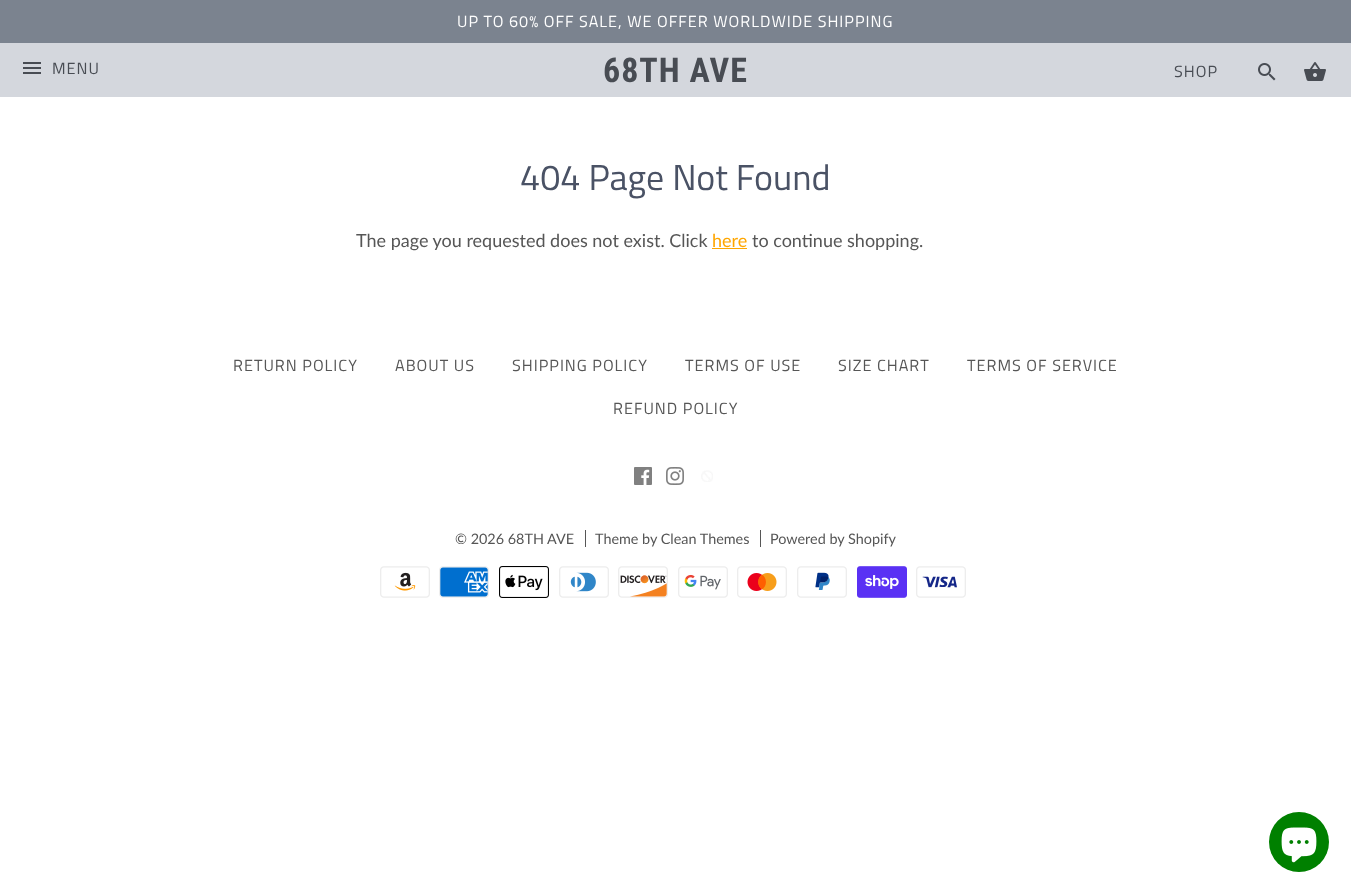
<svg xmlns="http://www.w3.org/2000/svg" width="1351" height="893">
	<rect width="100%" height="100%" fill="#FFFFFF" />
	<rect x="0" y="43" width="1351" height="54" fill="#D4D7DD" />
	<rect x="0" y="0" width="1351" height="43" fill="#7B838F" />
	<text x="457" y="27" font-family="Titillium Web" font-size="16.2" letter-spacing="1" fill="#FFFFFF">UP TO 60% OFF SALE, WE OFFER WORLDWIDE SHIPPING</text>
	<image x="23" y="62" width="18" height="12" href="assets/img1.png" />
	<text x="52" y="74" font-family="Titillium Web" font-size="16.2" letter-spacing="1" fill="#484C53">MENU</text>
	<text x="603" y="82" font-family="Roboto Condensed" font-size="34" font-weight="700" letter-spacing="1" fill="#484C53">68TH AVE</text>
	<text x="1174" y="77" font-family="Titillium Web" font-size="16.2" letter-spacing="1" fill="#484C53">SHOP</text>
	<image x="1258" y="63" width="18" height="18" href="assets/img2.png" />
	<image x="1304" y="62" width="22" height="19" href="assets/img3.png" />
	<text x="520" y="190" font-family="Titillium Web" font-size="36" fill="#4A5265">404 Page Not Found</text>
	<text x="356" y="247" font-family="Lato" font-size="18" fill="#565656">The page you requested does not exist. Click</text>
	<text x="712" y="247" font-family="Lato" font-size="18" fill="#FFA600">here</text>
	<rect x="712" y="248" width="35" height="1" fill="#FFA600" />
	<text x="752" y="247" font-family="Lato" font-size="18" fill="#565656">to continue shopping.</text>
	<g font-family="Titillium Web" font-size="16.2" letter-spacing="1" fill="#565656">
		<text x="233" y="371">RETURN POLICY</text>
		<text x="395" y="371">ABOUT US</text>
		<text x="512" y="371">SHIPPING POLICY</text>
		<text x="685" y="371">TERMS OF USE</text>
		<text x="838" y="371">SIZE CHART</text>
		<text x="967" y="371">TERMS OF SERVICE</text>
		<text x="613" y="414">REFUND POLICY</text>
	</g>
	<image x="634" y="467" width="18" height="18" href="assets/img4.png" />
	<image x="666" y="467" width="18" height="18" href="assets/img5.png" />
	<image x="701" y="470" width="12" height="12" href="assets/img6.png" />
	<text x="455" y="544" font-family="Lato" font-size="14.4" fill="#565656">© 2026 68TH AVE</text>
	<rect x="585" y="530" width="1" height="17" fill="#565656" />
	<text x="595" y="544" font-family="Lato" font-size="14.4" fill="#565656">Theme by Clean Themes</text>
	<rect x="760" y="530" width="1" height="17" fill="#565656" />
	<text x="770" y="544" font-family="Lato" font-size="14.4" fill="#565656">Powered by Shopify</text>
	<image x="380" y="566" width="50" height="32" href="assets/img7.png" />
	<image x="439" y="566" width="50" height="32" href="assets/img8.png" />
	<image x="499" y="566" width="50" height="32" href="assets/img9.png" />
	<image x="559" y="566" width="50" height="32" href="assets/img10.png" />
	<image x="618" y="566" width="50" height="32" href="assets/img11.png" />
	<image x="678" y="566" width="50" height="32" href="assets/img12.png" />
	<image x="737" y="566" width="50" height="32" href="assets/img13.png" />
	<image x="797" y="566" width="50" height="32" href="assets/img14.png" />
	<image x="857" y="566" width="50" height="32" href="assets/img15.png" />
	<image x="916" y="566" width="50" height="32" href="assets/img16.png" />
	<circle cx="1299" cy="842" r="30" fill="#008000" />
	<image x="1281" y="827" width="36" height="36" href="assets/img17.png" />
</svg>
